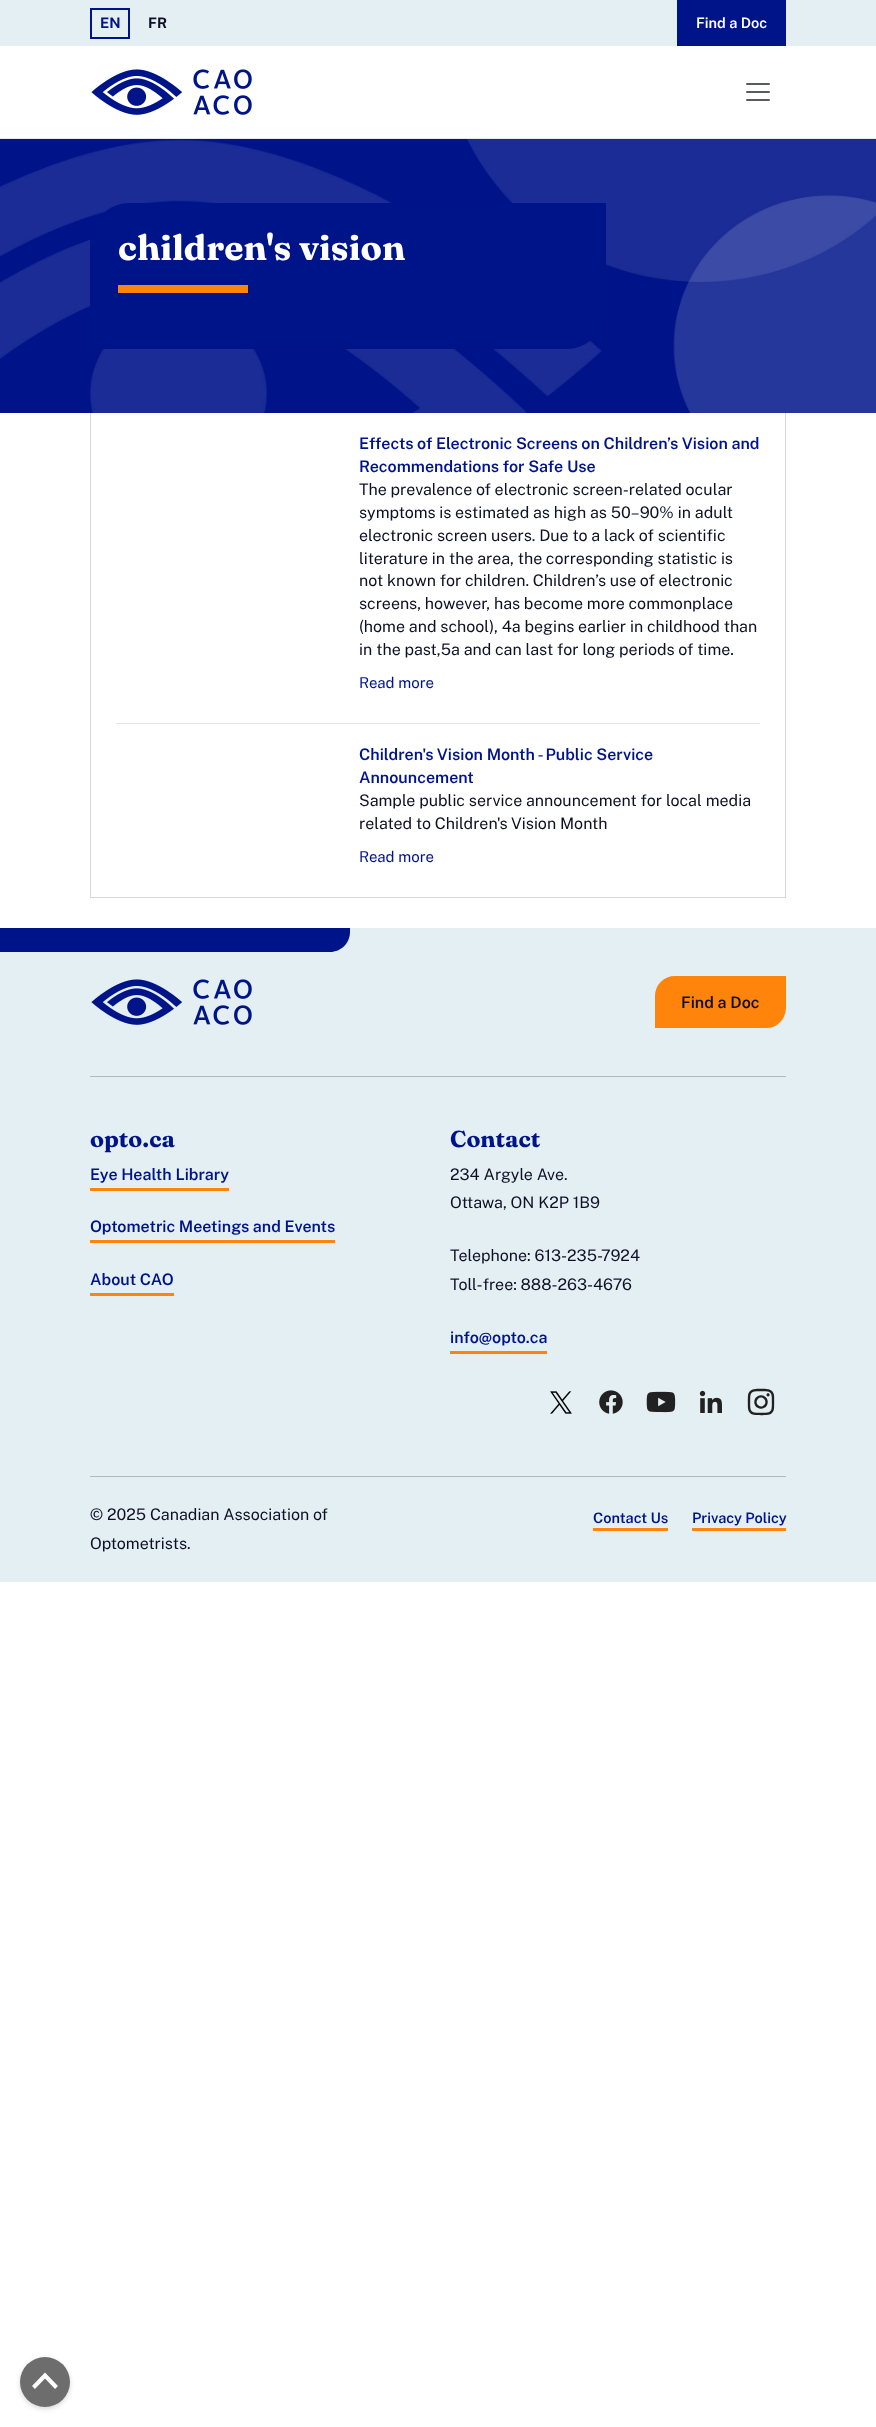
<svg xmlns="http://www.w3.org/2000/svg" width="876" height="2427">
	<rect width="100%" height="100%" fill="#FFFFFF" />
	<rect x="0" y="0" width="876" height="46" fill="#E4EFF3" />
	<rect x="91" y="9" width="38" height="29" fill="none" stroke="#001489" stroke-width="2" />
	<text x="100" y="28" font-family="Public Sans" font-size="14.5" font-weight="700" fill="#001489">EN</text>
	<text x="148" y="28" font-family="Public Sans" font-size="14.5" font-weight="700" fill="#0F0F26">FR</text>
	<rect x="677" y="0" width="109" height="46" fill="#001489" />
	<text x="696" y="28" font-family="Public Sans" font-size="14.5" font-weight="600" fill="#FFFFFF">Find a Doc</text>
	<image x="91" y="69" width="161" height="46" href="assets/img1.png" />
	<image x="746" y="83" width="24" height="18" href="assets/img2.png" />
	<rect x="0" y="138" width="876" height="1" fill="#E6E6E6" />
	<rect x="20" y="2359" width="50" height="50" rx="25" fill="#000000" fill-opacity="0.15" filter="blur(2.5px)" />
	<circle cx="45" cy="2382" r="25" fill="#6D6D6D" />
	<path d="M56.5 2387.5L45 2375.5L33.5 2387.5" fill="none" stroke="#FFFFFF" stroke-width="4" />
	<image x="0" y="139" width="876" height="274" href="assets/img3.png" />
	<path d="M130 203H606V309C606 331 588 349 566 349H90V243C90 221 108 203 130 203Z" fill="#001489" />
	<text x="118" y="260" font-family="Fraunces" font-size="35.25" font-weight="700" fill="#FFFFFF">children's vision</text>
	<rect x="118" y="285" width="130" height="8" fill="#FF840B" />
	<rect x="785" y="413" width="1" height="485" fill="#D8D8D8" />
	<rect x="90" y="897" width="696" height="1" fill="#D8D8D8" />
	<rect x="90" y="413" width="1" height="485" fill="#D8D8D8" />
	<rect x="116" y="723" width="644" height="1" fill="#E5E5E5" />
	<g font-family="Public Sans" font-size="16" font-weight="600" fill="#001489">
		<text x="359" y="449">Effects of Electronic Screens on Children’s Vision and</text>
		<text x="359" y="472">Recommendations for Safe Use</text>
	</g>
	<g font-family="Public Sans" font-size="16" fill="#0F0F26">
		<text x="359" y="495">The prevalence of electronic screen-related ocular</text>
		<text x="359" y="518">symptoms is estimated as high as 50–90% in adult</text>
		<text x="359" y="541">electronic screen users. Due to a lack of scientific</text>
		<text x="359" y="564">literature in the area, the corresponding statistic is</text>
		<text x="359" y="586">not known for children. Children’s use of electronic</text>
		<text x="359" y="609">screens, however, has become more commonplace</text>
		<text x="359" y="632">(home and school), 4a begins earlier in childhood than</text>
		<text x="359" y="655">in the past,5a and can last for long periods of time.</text>
	</g>
	<text x="359" y="688" font-family="Public Sans" font-size="15" fill="#001489">Read more</text>
	<g font-family="Public Sans" font-size="16" font-weight="600" fill="#001489">
		<text x="359" y="760">Children's Vision Month - Public Service</text>
		<text x="359" y="783">Announcement</text>
	</g>
	<g font-family="Public Sans" font-size="16" fill="#0F0F26">
		<text x="359" y="806">Sample public service announcement for local media</text>
		<text x="359" y="829">related to Children's Vision Month</text>
	</g>
	<text x="359" y="862" font-family="Public Sans" font-size="15" fill="#001489">Read more</text>
	<rect x="0" y="928" width="876" height="654" fill="#E4EFF3" />
	<path d="M0 928H350V932C350 943 341 952 330 952H0Z" fill="#001489" />
	<image x="91" y="979" width="161" height="46" href="assets/img4.png" />
	<path d="M675 977H785V1008C785 1018.5 776.5 1027 766 1027H656V996C656 985.5 664.5 977 675 977Z" fill="#FF840B" stroke="#FF840B" stroke-width="2" />
	<text x="681" y="1008" font-family="Public Sans" font-size="16" font-weight="600" fill="#0F0F26">Find a Doc</text>
	<rect x="90" y="1076" width="696" height="1" fill="#AFB7C0" />
	<text x="90" y="1147" font-family="Fraunces" font-size="23" font-weight="700" fill="#001489">opto.ca</text>
	<text x="90" y="1180" font-family="Public Sans" font-size="16" font-weight="600" fill="#001489">Eye Health Library</text>
	<rect x="90" y="1188" width="139" height="3" fill="#FF840B" />
	<text x="90" y="1232" font-family="Public Sans" font-size="16" font-weight="600" fill="#001489">Optometric Meetings and Events</text>
	<rect x="90" y="1240" width="245" height="3" fill="#FF840B" />
	<text x="90" y="1285" font-family="Public Sans" font-size="16" font-weight="600" fill="#001489">About CAO</text>
	<rect x="90" y="1293" width="84" height="3" fill="#FF840B" />
	<text x="450" y="1147" font-family="Fraunces" font-size="23" font-weight="700" fill="#001489">Contact</text>
	<g font-family="Public Sans" font-size="16" fill="#0F0F26">
		<text x="450" y="1180">234 Argyle Ave.</text>
		<text x="450" y="1208">Ottawa, ON K2P 1B9</text>
		<text x="450" y="1261">Telephone: 613-235-7924</text>
		<text x="450" y="1290">Toll-free: 888-263-4676</text>
	</g>
	<text x="450" y="1343" font-family="Public Sans" font-size="16" font-weight="600" fill="#001489">info@opto.ca</text>
	<rect x="450" y="1351" width="97" height="3" fill="#FF840B" />
	<image x="550" y="1391" width="22" height="23" href="assets/img5.png" />
	<image x="599" y="1390" width="24" height="24" href="assets/img6.png" />
	<image x="646" y="1391" width="30" height="22" href="assets/img7.png" />
	<image x="699" y="1390" width="23" height="23" href="assets/img8.png" />
	<image x="747" y="1388" width="28" height="28" href="assets/img9.png" />
	<rect x="90" y="1476" width="696" height="1" fill="#AFB7C0" />
	<g font-family="Public Sans" font-size="16" fill="#0F0F26">
		<text x="90" y="1520">© 2025 Canadian Association of</text>
		<text x="90" y="1549">Optometrists.</text>
	</g>
	<rect x="593" y="1528" width="75" height="3" fill="#FF840B" />
	<text x="593" y="1523" font-family="Public Sans" font-size="14.5" font-weight="600" fill="#001489">Contact Us</text>
	<rect x="692" y="1528" width="94" height="3" fill="#FF840B" />
	<text x="692" y="1523" font-family="Public Sans" font-size="14.5" font-weight="600" fill="#001489">Privacy Policy</text>
</svg>
